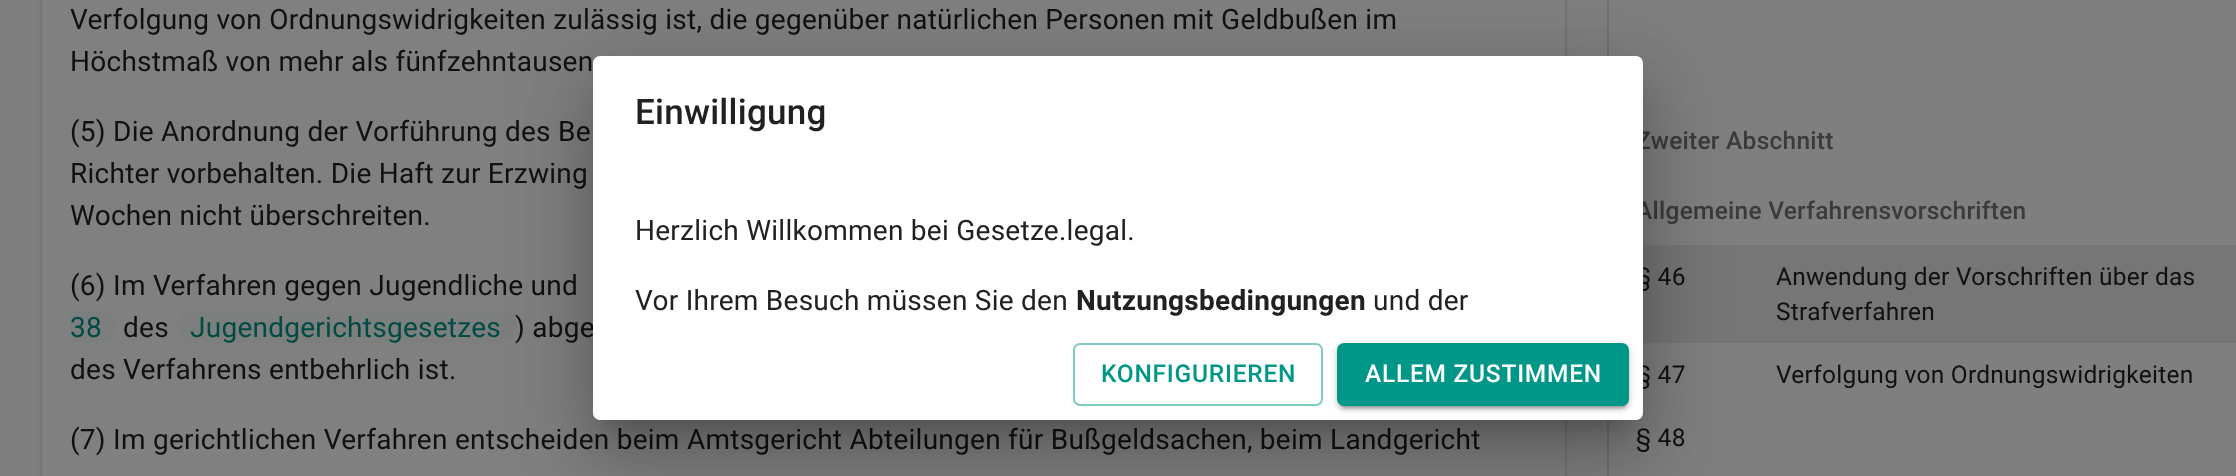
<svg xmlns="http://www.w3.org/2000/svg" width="2236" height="476">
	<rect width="100%" height="100%" fill="#7F7F7F" />
	<rect x="42" y="-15" width="1523" height="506" rx="7" fill="#000000" fill-opacity="0.12" filter="blur(2.5px)" />
	<rect x="42" y="-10" width="1523" height="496" rx="7" fill="#000000" fill-opacity="0.14" filter="blur(1px)" />
	<rect x="42" y="0" width="1523" height="476" fill="#808080" />
	<g font-family="Roboto" font-size="28" letter-spacing="0.26" fill="#111111">
		<text x="70" y="29">Verfolgung von Ordnungswidrigkeiten zulässig ist, die gegenüber natürlichen Personen mit Geldbußen im</text>
		<text x="70" y="71">Höchstmaß von mehr als fünfzehntausen</text>
		<text x="70" y="141">(5) Die Anordnung der Vorführung des Be</text>
		<text x="70" y="183">Richter vorbehalten. Die Haft zur Erzwing</text>
		<text x="70" y="225">Wochen nicht überschreiten.</text>
		<text x="70" y="295">(6) Im Verfahren gegen Jugendliche und</text>
	</g>
	<path d="M70 310H99.5C108.5 310 116 317.5 116 326.5C116 335.5 108.5 343 99.5 343H70Z" fill="#7C7F7E" />
	<text x="70" y="337" font-family="Roboto" font-size="28" letter-spacing="0.26" fill="#004B44">38</text>
	<text x="123" y="337" font-family="Roboto" font-size="28" letter-spacing="0.26" fill="#111111">des</text>
	<rect x="177" y="310" width="339" height="33" rx="16.5" fill="#7C7F7E" />
	<text x="190" y="337" font-family="Roboto" font-size="28" letter-spacing="0.26" fill="#004B44">Jugendgerichtsgesetzes</text>
	<g font-family="Roboto" font-size="28" letter-spacing="0.26" fill="#111111">
		<text x="515" y="337">) abge</text>
		<text x="70" y="379">des Verfahrens entbehrlich ist.</text>
		<text x="70" y="449">(7) Im gerichtlichen Verfahren entscheiden beim Amtsgericht Abteilungen für Bußgeldsachen, beim Landgericht</text>
	</g>
	<rect x="1643" y="245" width="593" height="98" fill="#767676" />
	<rect x="1607" y="0" width="2" height="476" fill="#707070" />
	<g font-family="Roboto" font-size="24.5" font-weight="500" letter-spacing="0.26" fill="#3B3B3B">
		<text x="1636" y="149">Zweiter Abschnitt</text>
		<text x="1636" y="219">Allgemeine Verfahrensvorschriften</text>
	</g>
	<g font-family="Roboto" font-size="24.5" letter-spacing="0.26" fill="#111111">
		<text x="1636" y="285">§ 46</text>
		<text x="1776" y="285">Anwendung der Vorschriften über das</text>
		<text x="1776" y="320">Strafverfahren</text>
		<text x="1636" y="383">§ 47</text>
		<text x="1776" y="383">Verfolgung von Ordnungswidrigkeiten</text>
		<text x="1636" y="446">§ 48</text>
	</g>
	<rect x="579" y="58" width="1078" height="392" rx="21" fill="#000000" fill-opacity="0.12" filter="blur(40px)" />
	<rect x="588" y="93" width="1061" height="374" rx="12" fill="#000000" fill-opacity="0.14" filter="blur(33px)" />
	<rect x="606" y="88" width="1025" height="339" fill="#000000" fill-opacity="0.2" filter="blur(13px)" />
	<rect x="593" y="56" width="1050" height="364" rx="7" fill="#FFFFFF" />
	<text x="635" y="124" font-family="Roboto" font-size="35" font-weight="500" letter-spacing="0.26" fill="#212121">Einwilligung</text>
	<g font-family="Roboto" font-size="28" letter-spacing="0.26" fill="#212121">
		<text x="635" y="240">Herzlich Willkommen bei Gesetze.legal.</text>
		<text x="635" y="310">Vor Ihrem Besuch müssen Sie den</text>
	</g>
	<text x="1076" y="310" font-family="Roboto" font-size="28" font-weight="700" letter-spacing="0.26" fill="#212121">Nutzungsbedingungen</text>
	<text x="1373" y="310" font-family="Roboto" font-size="28" letter-spacing="0.26" fill="#212121">und der</text>
	<rect x="1074" y="344" width="248" height="61" rx="6" fill="none" stroke="#80CBC4" stroke-width="2" />
	<text x="1101" y="382" font-family="Roboto" font-size="24.5" font-weight="500" letter-spacing="0.75" fill="#009688">KONFIGURIEREN</text>
	<rect x="1337" y="345" width="292" height="63" rx="7" fill="#000000" fill-opacity="0.12" filter="blur(4.5px)" />
	<rect x="1337" y="347" width="292" height="63" rx="7" fill="#000000" fill-opacity="0.14" filter="blur(2px)" />
	<rect x="1341" y="352" width="285" height="56" rx="4" fill="#000000" fill-opacity="0.2" filter="blur(1px)" />
	<rect x="1337" y="343" width="292" height="63" rx="7" fill="#009688" />
	<text x="1365" y="382" font-family="Roboto" font-size="24.5" font-weight="500" letter-spacing="0.75" fill="#FFFFFF">ALLEM ZUSTIMMEN</text>
</svg>
